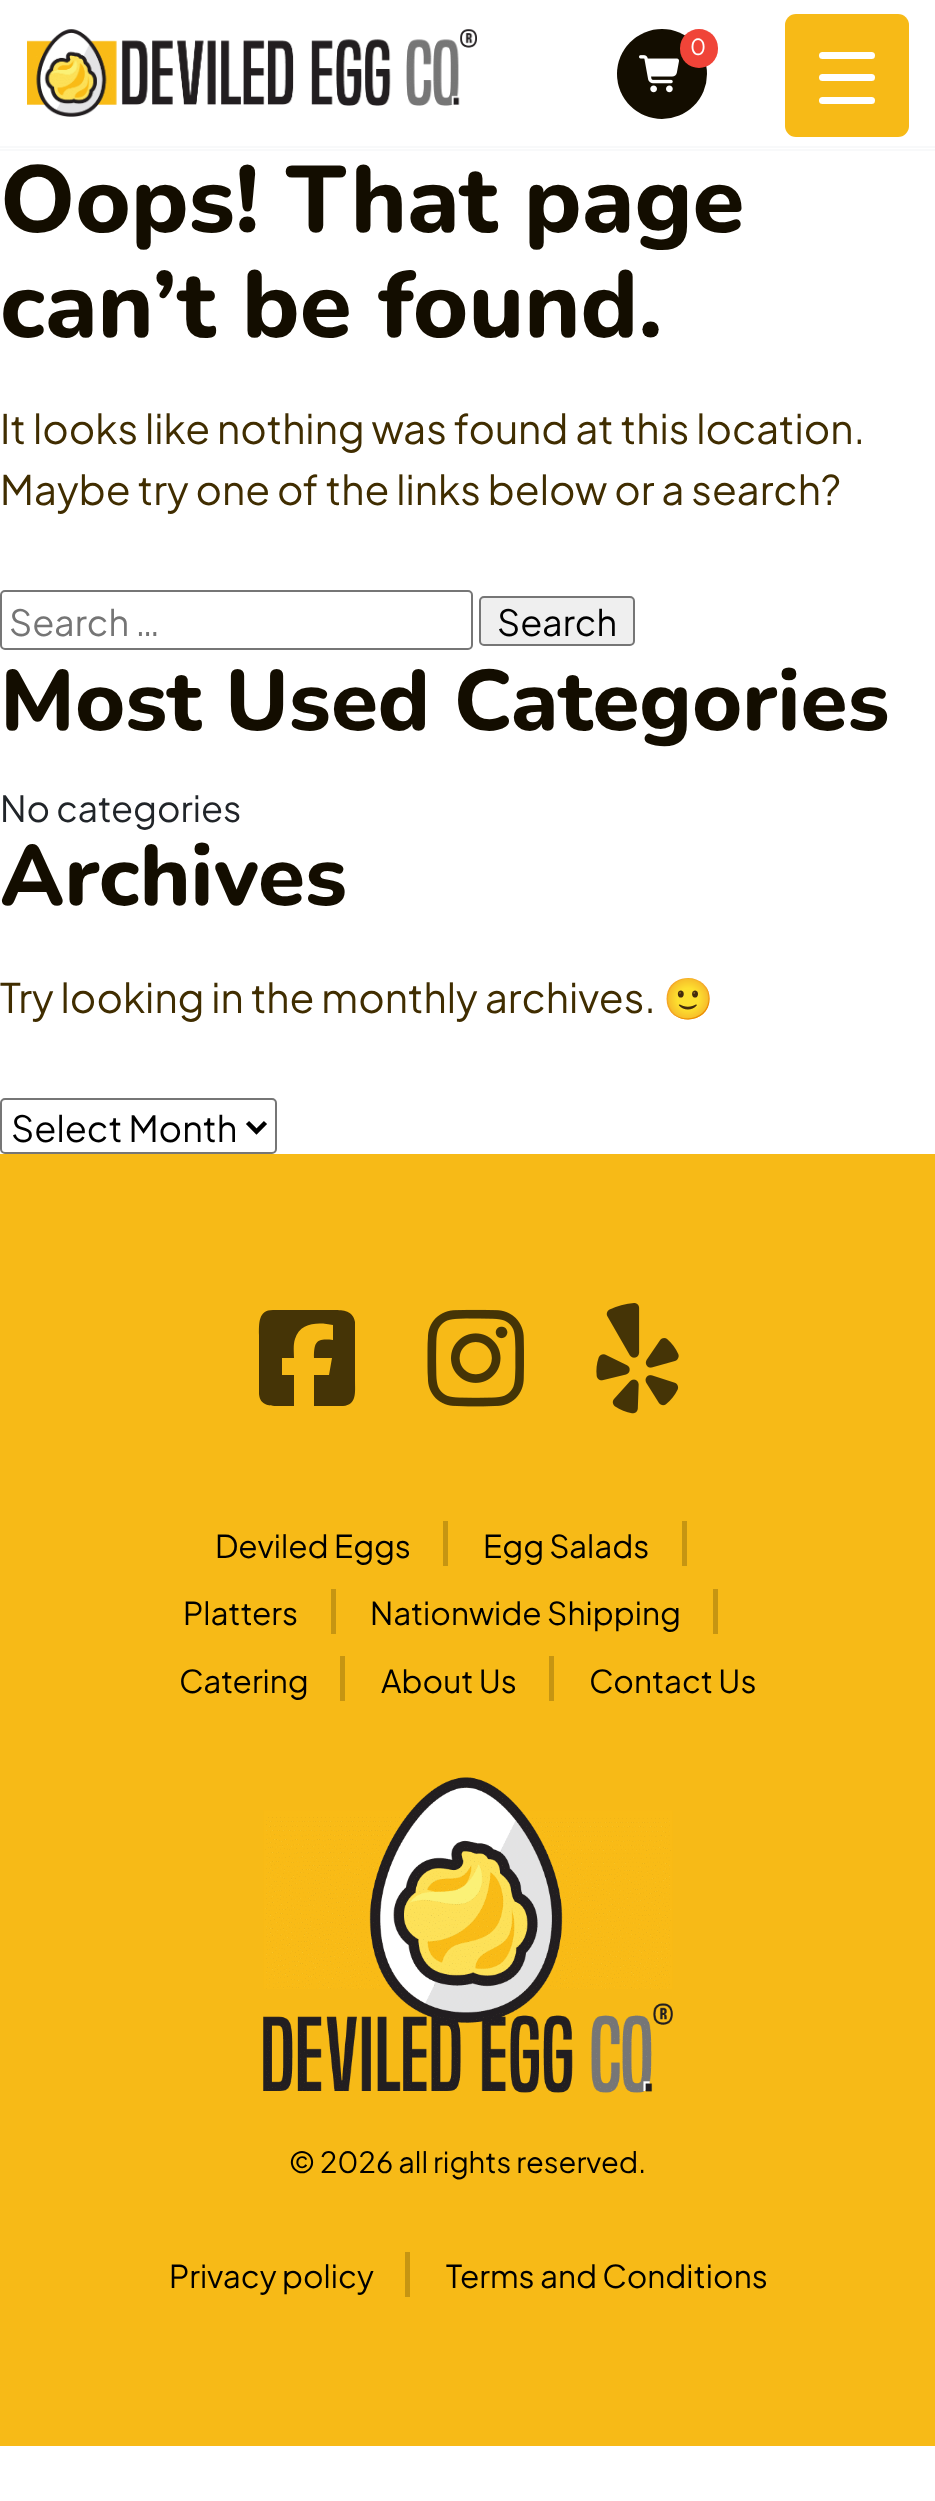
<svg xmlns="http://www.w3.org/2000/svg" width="935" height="2501">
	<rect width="100%" height="100%" fill="#FFFFFF" />
	<rect x="785" y="14" width="124" height="123" rx="11" fill="#F7BA17" />
	<rect x="819" y="74" width="56" height="7" rx="3.5" fill="#FFFFFF" />
	<rect x="819" y="52" width="56" height="7" rx="3.5" fill="#FFFFFF" />
	<rect x="819" y="97" width="56" height="7" rx="3.5" fill="#FFFFFF" />
	<rect x="0" y="146" width="935" height="2" fill="#F8F9FA" />
	<image x="27" y="29" width="450" height="88" href="assets/img1.png" />
	<circle cx="662" cy="74" r="45" fill="#130D00" />
	<image x="639" y="55" width="40" height="38" href="assets/img2.png" />
	<rect x="680" y="29" width="38" height="39" rx="19" fill="#F04438" />
	<text x="690" y="55" font-family="Plus Jakarta Sans" font-size="22" fill="#FFFFFF">0</text>
	<rect x="0" y="149" width="935" height="2" fill="#F8F9FA" />
	<g font-family="Nunito" font-size="94.5" font-weight="800" fill="#130D00">
		<text x="0" y="232">Oops! That page</text>
		<text x="0" y="337">can’t be found.</text>
	</g>
	<g font-family="Plus Jakarta Sans" font-size="40.5" fill="#402D00">
		<text x="0" y="444">It looks like nothing was found at this location.</text>
		<text x="0" y="505">Maybe try one of the links below or a search?</text>
	</g>
	<rect x="1" y="591" width="471" height="58" rx="4" fill="none" stroke="#767676" stroke-width="2" />
	<text x="9" y="636" font-family="Plus Jakarta Sans" font-size="36" fill="#757575">Search …</text>
	<rect x="480" y="597" width="154" height="48" rx="4" fill="#EFEFEF" stroke="#767676" stroke-width="2" />
	<text x="497" y="636" font-family="Plus Jakarta Sans" font-size="36" fill="#000000">Search</text>
	<text x="0" y="730" font-family="Nunito" font-size="85.5" font-weight="800" fill="#130D00">Most Used Categories</text>
	<text x="0" y="822" font-family="Plus Jakarta Sans" font-size="36" fill="#212529">No categories</text>
	<text x="0" y="905" font-family="Nunito" font-size="85.5" font-weight="800" fill="#130D00">Archives</text>
	<text x="0" y="1013" font-family="Plus Jakarta Sans" font-size="40.5" fill="#402D00">Try looking in the monthly archives.</text>
	<text x="663" y="1013" font-family="Noto Color Emoji" font-size="40.5" fill="#402D00">🙂</text>
	<rect x="1" y="1099" width="275" height="54" rx="4" fill="none" stroke="#767676" stroke-width="2" />
	<path d="M247.5 1122.5L256.5 1131.5L265.5 1122.5" fill="none" stroke="#000000" stroke-width="4.5" />
	<text x="11" y="1142" font-family="Plus Jakarta Sans" font-size="36" fill="#000000">Select Month</text>
	<rect x="0" y="1154" width="935" height="1292" fill="#F7BA17" />
	<path d="M273 1310C258 1310 259 1324 259 1335V1394C260 1406 270 1406 280 1406H294V1375H282V1358H294C294 1352 293 1345 295 1339C300 1322 319 1322 333 1325V1340C316 1338 314 1342 314 1358H332L329 1375H314V1406H343C357 1405 355 1392 355 1381V1322C353 1309 340 1310 330 1310Z" fill="#453406" />
	<image x="427" y="1309" width="97" height="98" href="assets/img3.png" />
	<image x="596" y="1303" width="83" height="111" href="assets/img4.png" />
	<text x="215" y="1558" font-family="Plus Jakarta Sans" font-size="31.5" fill="#000000">Deviled Eggs</text>
	<rect x="443" y="1521" width="5" height="45" fill="#C69512" />
	<text x="483" y="1558" font-family="Plus Jakarta Sans" font-size="31.5" fill="#000000">Egg Salads</text>
	<rect x="682" y="1521" width="5" height="45" fill="#C69512" />
	<text x="183" y="1625" font-family="Plus Jakarta Sans" font-size="31.5" fill="#000000">Platters</text>
	<rect x="331" y="1589" width="5" height="45" fill="#C69512" />
	<text x="370" y="1625" font-family="Plus Jakarta Sans" font-size="31.5" fill="#000000">Nationwide Shipping</text>
	<rect x="713" y="1589" width="5" height="45" fill="#C69512" />
	<text x="179" y="1693" font-family="Plus Jakarta Sans" font-size="31.5" fill="#000000">Catering</text>
	<rect x="340" y="1656" width="5" height="45" fill="#C69512" />
	<text x="381" y="1693" font-family="Plus Jakarta Sans" font-size="31.5" fill="#000000">About Us</text>
	<rect x="549" y="1656" width="5" height="45" fill="#C69512" />
	<text x="589" y="1693" font-family="Plus Jakarta Sans" font-size="31.5" fill="#000000">Contact Us</text>
	<image x="263" y="1777" width="410" height="316" href="assets/img5.png" />
	<text x="289" y="2173" font-family="Plus Jakarta Sans" font-size="29" fill="#000000">© 2026 all rights reserved.</text>
	<text x="169" y="2288" font-family="Plus Jakarta Sans" font-size="31.5" fill="#000000">Privacy policy</text>
	<rect x="405" y="2252" width="5" height="45" fill="#C69512" />
	<text x="446" y="2288" font-family="Plus Jakarta Sans" font-size="31.5" fill="#000000">Terms and Conditions</text>
</svg>
